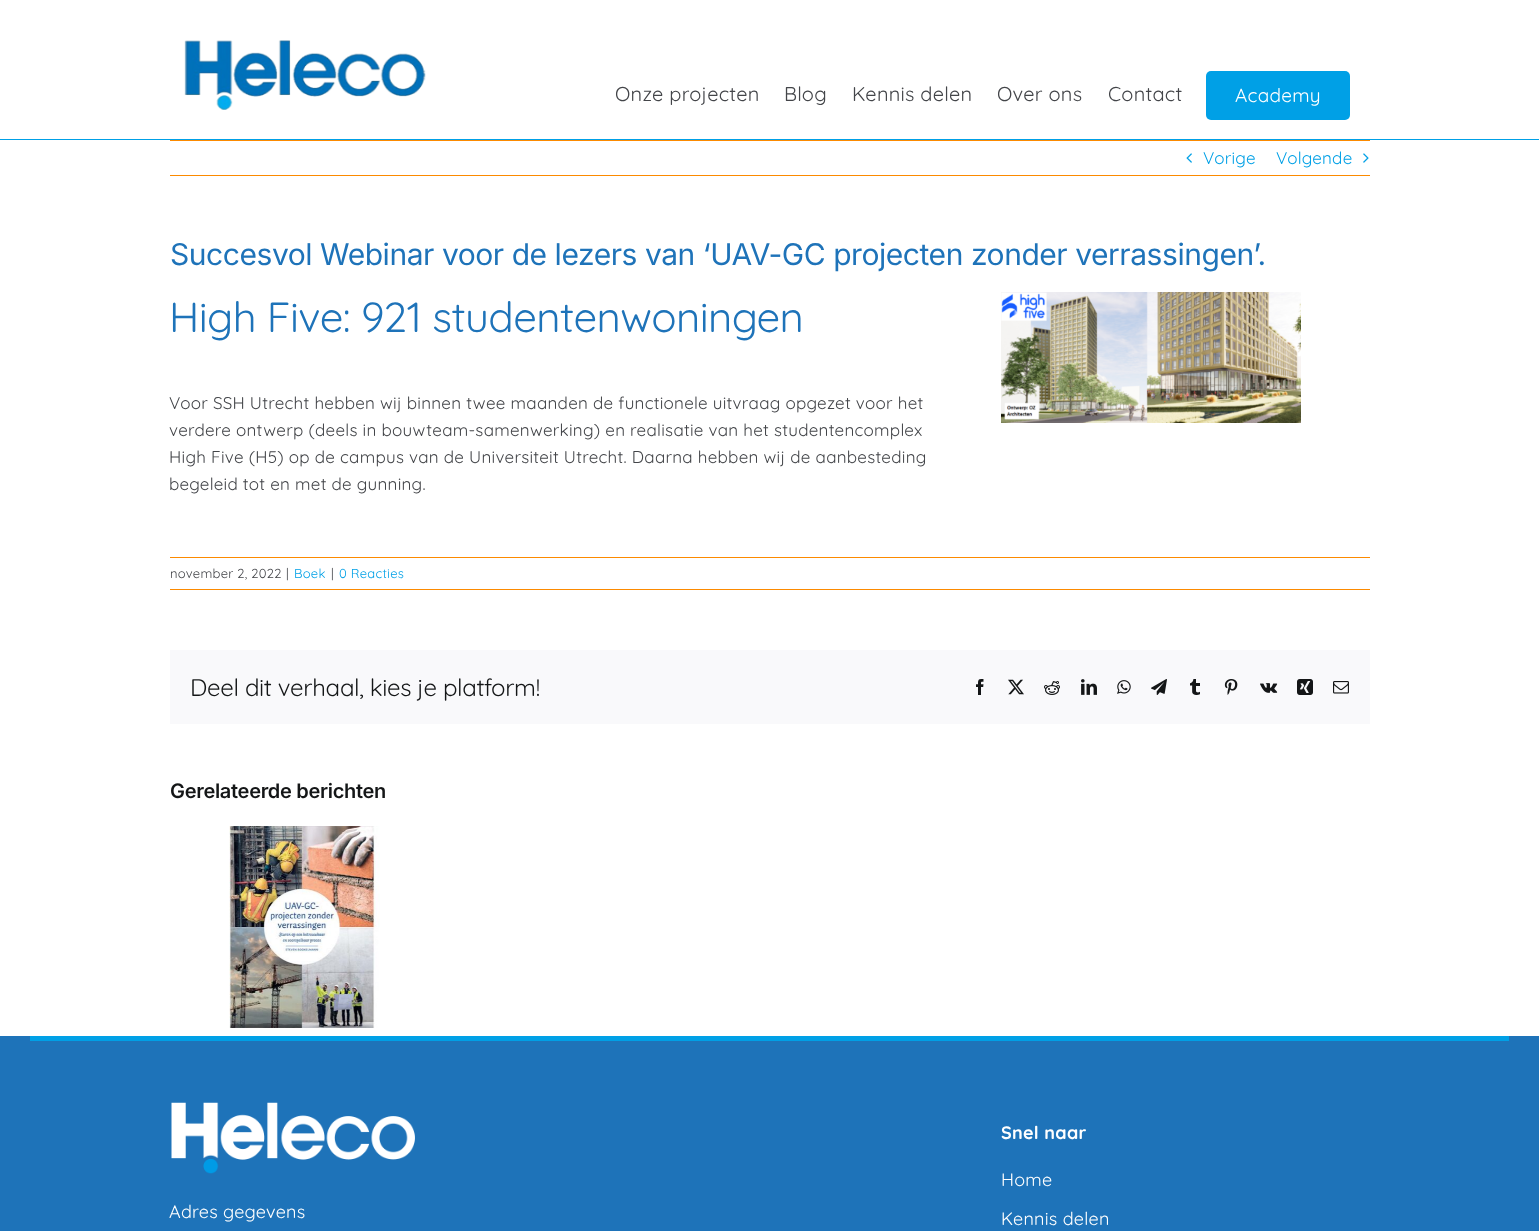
<svg xmlns="http://www.w3.org/2000/svg" width="1539" height="1231">
	<rect width="100%" height="100%" fill="#FFFFFF" />
	<rect x="0" y="139" width="1539" height="1" fill="#00A0E6" />
	<image x="184" y="40" width="242" height="70" href="assets/img1.png" />
	<g font-family="Quicksand" font-size="20" letter-spacing="0.25" fill="#434549">
		<text x="615" y="101">Onze projecten</text>
		<text x="784" y="101">Blog</text>
		<text x="852" y="101">Kennis delen</text>
		<text x="997" y="101">Over ons</text>
		<text x="1108" y="101">Contact</text>
	</g>
	<rect x="1206" y="71" width="144" height="49" rx="5" fill="#00A0E6" />
	<text x="1235" y="102" font-family="Quicksand" font-size="19" letter-spacing="0.25" fill="#FFFFFF">Academy</text>
	<rect x="170" y="140" width="1200" height="1" fill="#FC8A00" />
	<rect x="170" y="175" width="1200" height="1" fill="#FC8A00" />
	<image x="1186" y="153" width="6" height="10" href="assets/img2.png" />
	<g font-family="Quicksand" font-size="17" letter-spacing="0.25" fill="#00A0E6">
		<text x="1203" y="164">Vorige</text>
		<text x="1276" y="164">Volgende</text>
	</g>
	<image x="1363" y="153" width="6" height="10" href="assets/img3.png" />
	<text x="170" y="265" font-family="Inter" font-size="30" letter-spacing="-0.45" fill="#1E73B9">Succesvol Webinar voor de lezers van ‘UAV-GC projecten zonder verrassingen’.</text>
	<text x="169" y="332" font-family="Quicksand" font-size="42" letter-spacing="-0.6" fill="#1E73B9">High Five: 921 studentenwoningen</text>
	<g font-family="Quicksand" font-size="17" letter-spacing="0.25" fill="#434549">
		<text x="169" y="409">Voor SSH Utrecht hebben wij binnen twee maanden de functionele uitvraag opgezet voor het</text>
		<text x="169" y="436">verdere ontwerp (deels in bouwteam-samenwerking) en realisatie van het studentencomplex</text>
		<text x="169" y="463">High Five (H5) op de campus van de Universiteit Utrecht. Daarna hebben wij de aanbesteding</text>
		<text x="169" y="490">begeleid tot en met de gunning.</text>
	</g>
	<image x="1001" y="292" width="300" height="131" href="assets/img4.png" />
	<rect x="170" y="557" width="1200" height="1" fill="#FC8A00" />
	<rect x="170" y="589" width="1200" height="1" fill="#FC8A00" />
	<g font-family="Quicksand" font-size="13" letter-spacing="0.25" fill="#434549">
		<text x="170" y="578">november 2, 2022</text>
		<text x="286" y="578">|</text>
	</g>
	<text x="294" y="578" font-family="Quicksand" font-size="13" letter-spacing="0.25" fill="#00A0E6">Boek</text>
	<text x="331" y="578" font-family="Quicksand" font-size="13" letter-spacing="0.25" fill="#434549">|</text>
	<text x="339" y="578" font-family="Quicksand" font-size="13" letter-spacing="0.25" fill="#00A0E6">0 Reacties</text>
	<rect x="170" y="650" width="1200" height="74" fill="#F9F9FB" />
	<text x="190" y="696" font-family="Quicksand" font-size="24" letter-spacing="-0.35" fill="#141617">Deel dit verhaal, kies je platform!</text>
	<image x="976" y="679" width="8" height="16" href="assets/img5.png" />
	<image x="1008" y="679" width="16" height="16" href="assets/img6.png" />
	<image x="1044" y="681" width="16" height="14" href="assets/img7.png" />
	<image x="1081" y="679" width="16" height="16" href="assets/img8.png" />
	<image x="1117" y="680" width="14" height="14" href="assets/img9.png" />
	<image x="1151" y="679" width="16" height="16" href="assets/img10.png" />
	<image x="1190" y="679" width="10" height="16" href="assets/img11.png" />
	<image x="1224" y="679" width="14" height="16" href="assets/img12.png" />
	<image x="1260" y="683" width="18" height="10" href="assets/img13.png" />
	<image x="1297" y="679" width="16" height="16" href="assets/img14.png" />
	<image x="1333" y="681" width="16" height="13" href="assets/img15.png" />
	<text x="170" y="798" font-family="Inter" font-size="20" font-weight="600" letter-spacing="-0.3" fill="#141617">Gerelateerde berichten</text>
	<image x="229" y="826" width="151" height="202" href="assets/img16.png" />
	<rect x="0" y="1036" width="1539" height="195" fill="#1E73B9" />
	<rect x="30" y="1036" width="1479" height="5" fill="#00A0E6" />
	<image x="171" y="1102" width="244" height="72" href="assets/img17.png" />
	<text x="169" y="1218" font-family="Quicksand" font-size="18" letter-spacing="0.25" fill="#FFFFFF">Adres gegevens</text>
	<text x="1001" y="1139" font-family="Quicksand" font-size="18" font-weight="700" letter-spacing="0.25" fill="#FFFFFF">Snel naar</text>
	<g font-family="Quicksand" font-size="18" letter-spacing="0.25" fill="#FFFFFF">
		<text x="1001" y="1186">Home</text>
		<text x="1001" y="1225">Kennis delen</text>
	</g>
</svg>
